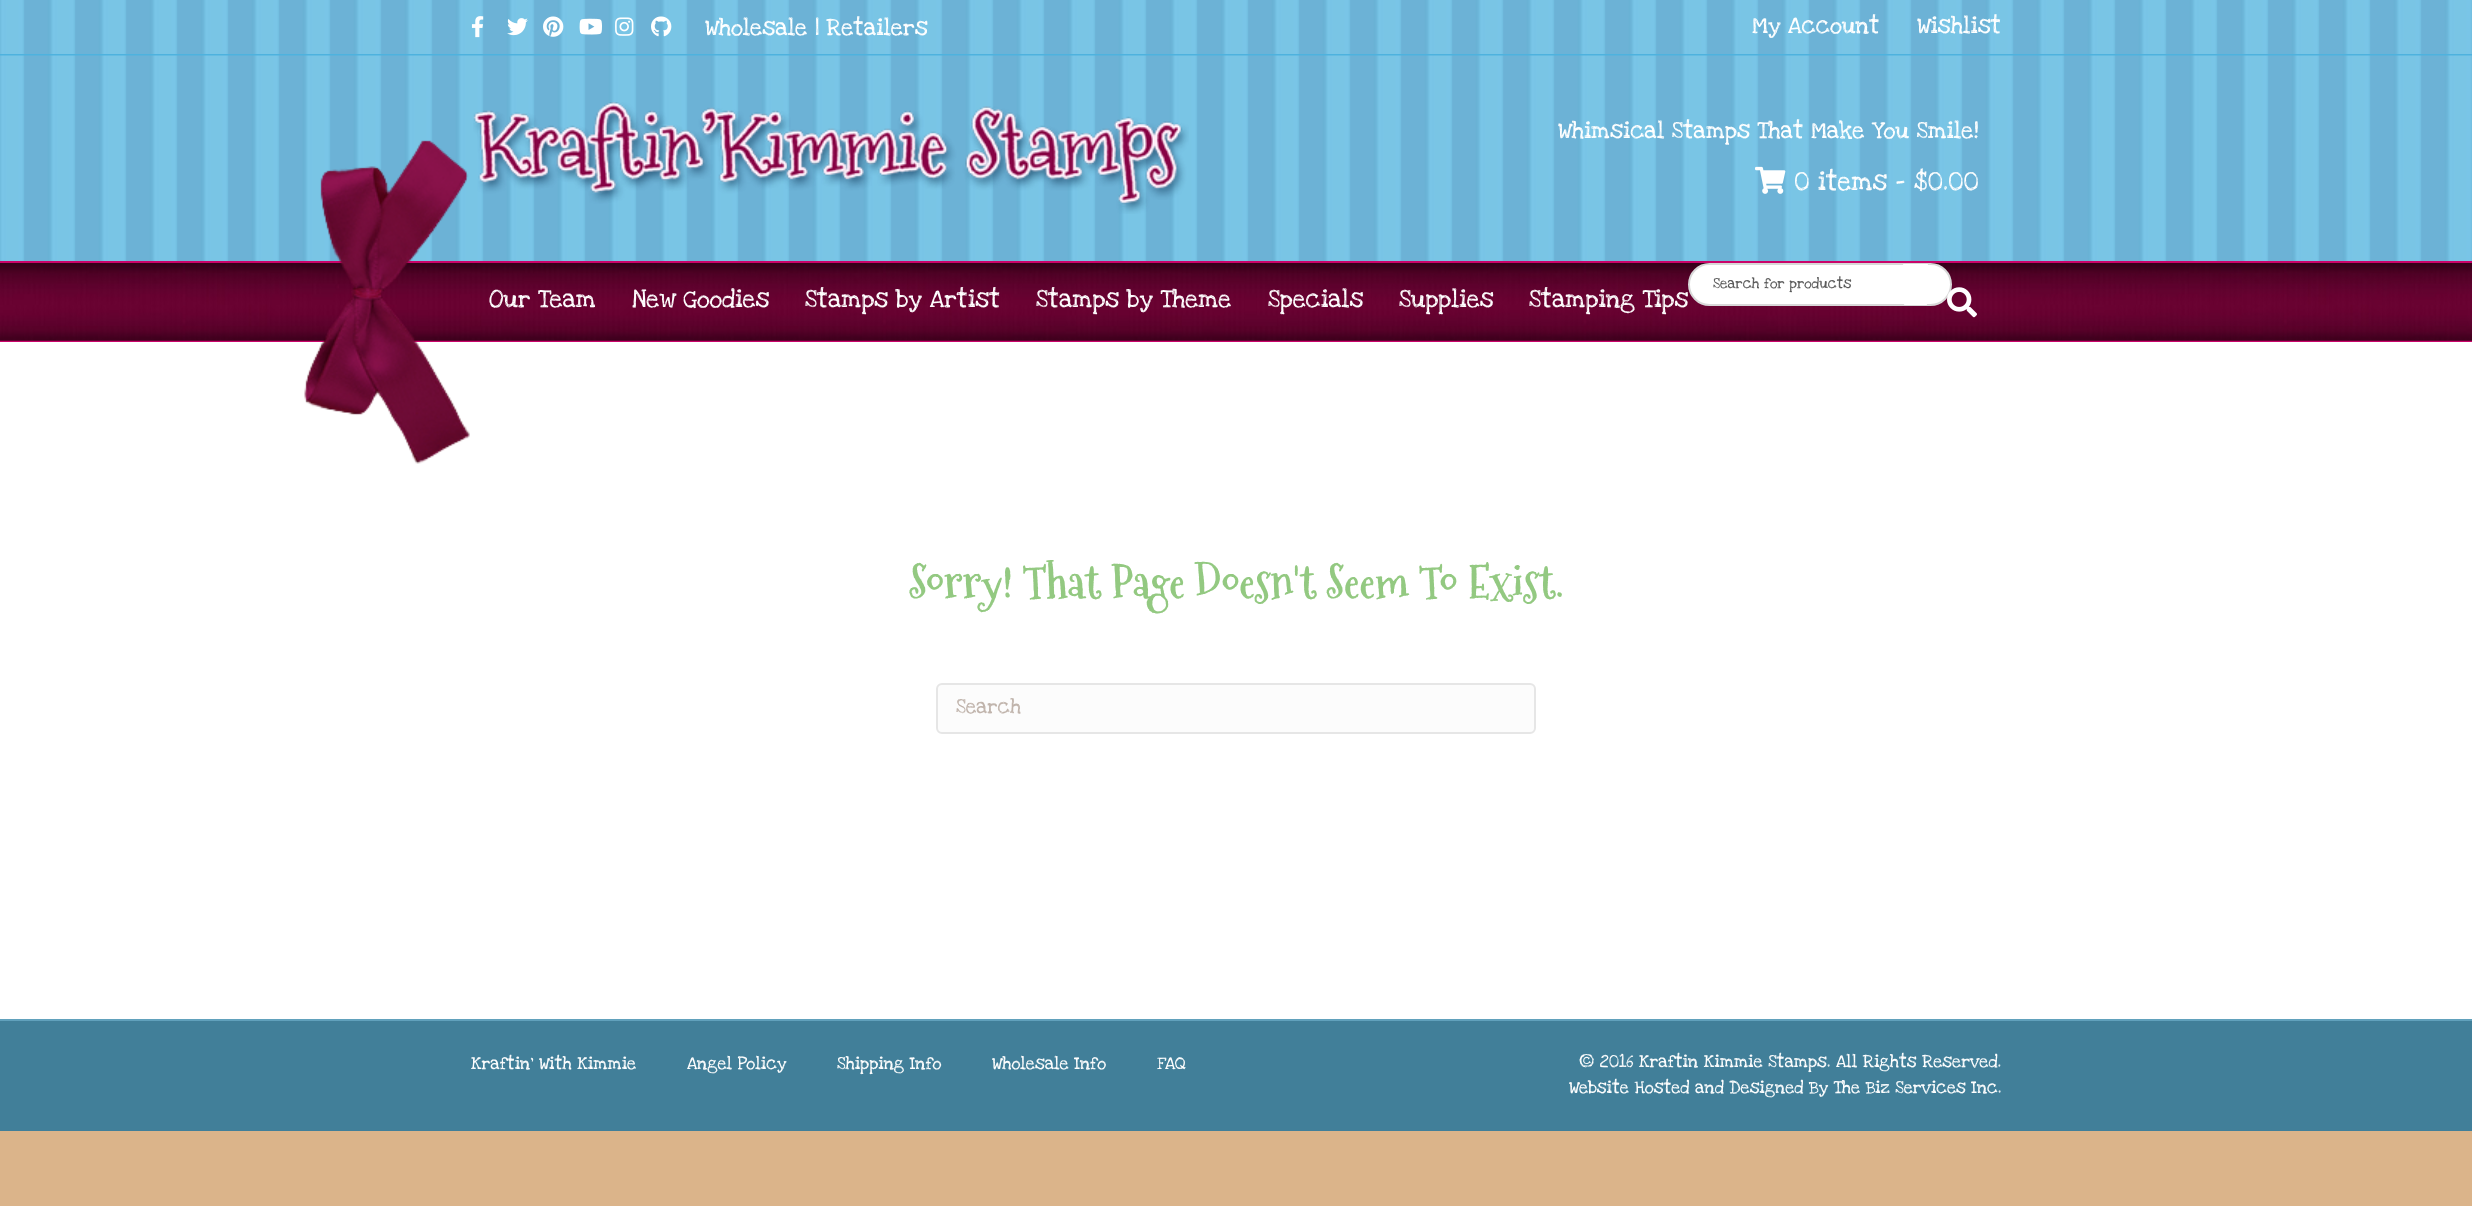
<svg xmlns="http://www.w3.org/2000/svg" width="2472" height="1206">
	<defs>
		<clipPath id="clip1"><rect x="1689" y="264" width="261" height="41" rx="20.5" /></clipPath>
	</defs>
	<rect width="100%" height="100%" fill="#DBB48A" />
	<image x="0" y="0" width="2472" height="54" href="assets/img1.png" />
	<rect x="0" y="54" width="2472" height="2" fill="#4EB2DE" />
	<image x="471" y="16" width="13" height="22" href="assets/img2.png" />
	<image x="507" y="18" width="21" height="18" href="assets/img3.png" />
	<image x="543" y="16" width="21" height="21" href="assets/img4.png" />
	<image x="579" y="18" width="23" height="17" href="assets/img5.png" />
	<image x="615" y="17" width="19" height="19" href="assets/img6.png" />
	<image x="651" y="16" width="21" height="21" href="assets/img7.png" />
	<g font-family="Love Ya Like A Sister" font-size="24" fill="#FFFFFF">
		<text x="705" y="35">Wholesale | Retailers</text>
		<text x="1752" y="33">My Account</text>
		<text x="1917" y="33">Wishlist</text>
	</g>
	<image x="0" y="55" width="2472" height="206" href="assets/img8.png" />
	<image x="473" y="102" width="716" height="112" href="assets/img9.png" />
	<text x="1558" y="138" font-family="Love Ya Like A Sister" font-size="24" fill="#FFFFFF">Whimsical Stamps That Make You Smile!</text>
	<image x="1755" y="166" width="31" height="28" href="assets/img10.png" />
	<text x="1794" y="190" font-family="Love Ya Like A Sister" font-size="27" fill="#FFFFFF">0 items - $0.00</text>
	<rect x="0" y="340" width="2472" height="1" fill="#890348" />
	<image x="0" y="263" width="2472" height="78" href="assets/img11.png" />
	<rect x="0" y="261" width="2472" height="2" fill="#CA046A" />
	<rect x="0" y="341" width="2472" height="1" fill="#CA046A" />
	<rect x="0" y="342" width="2472" height="677" fill="#FFFFFF" />
	<image x="304" y="140" width="166" height="324" href="assets/img12.png" />
	<rect x="1689" y="264" width="262" height="41" rx="20.5" fill="#FFFFFF" stroke="#D8D8D8" stroke-width="2" />
	<text x="1713" y="288" font-family="Love Ya Like A Sister" font-size="15" fill="#575757">Search for products</text>
	<path d="M1905 305C1893 295 1893 274 1904 264H1927C1938 274 1938 295 1926 305Z" fill="#FFFFFF" />
	<g clip-path="url(#clip1)">
		<path d="M1915.5 260C1940 260 1940 308 1915.5 308C1891 308 1891 260 1915.5 260Z" fill="none" stroke="#FFFFFF" stroke-width="1.5" />
	</g>
	<image x="1947" y="287" width="30" height="31" href="assets/img13.png" />
	<g font-family="Love Ya Like A Sister" font-size="25.5" fill="#FFFFFF">
		<text x="489" y="307">Our Team</text>
		<text x="632" y="307">New Goodies</text>
		<text x="805" y="307">Stamps by Artist</text>
		<text x="1036" y="307">Stamps by Theme</text>
		<text x="1268" y="307">Specials</text>
		<text x="1399" y="307">Supplies</text>
		<text x="1529" y="307">Stamping Tips</text>
	</g>
	<text x="909" y="598" font-family="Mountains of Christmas" font-size="45" font-weight="700" fill="#93C981">Sorry! That Page Doesn't Seem To Exist.</text>
	<rect x="937" y="684" width="598" height="49" rx="5" fill="#FCFCFC" stroke="#E6E6E6" stroke-width="2" />
	<text x="956" y="713" font-family="Love Ya Like A Sister" font-size="21" fill="#C0B4AC">Search</text>
	<rect x="0" y="1021" width="2472" height="110" fill="#417F99" />
	<rect x="0" y="1019" width="2472" height="2" fill="#61A1BC" />
	<g font-family="Love Ya Like A Sister" font-size="18" fill="#FFFFFF">
		<text x="471" y="1069">Kraftin’ With Kimmie</text>
		<text x="687" y="1069">Angel Policy</text>
		<text x="837" y="1069">Shipping Info</text>
		<text x="992" y="1069">Wholesale Info</text>
		<text x="1157" y="1069">FAQ</text>
		<text x="1579" y="1067">© 2016 Kraftin Kimmie Stamps. All Rights Reserved.</text>
		<text x="1569" y="1093">Website Hosted and Designed By The Biz Services Inc.</text>
	</g>
</svg>
